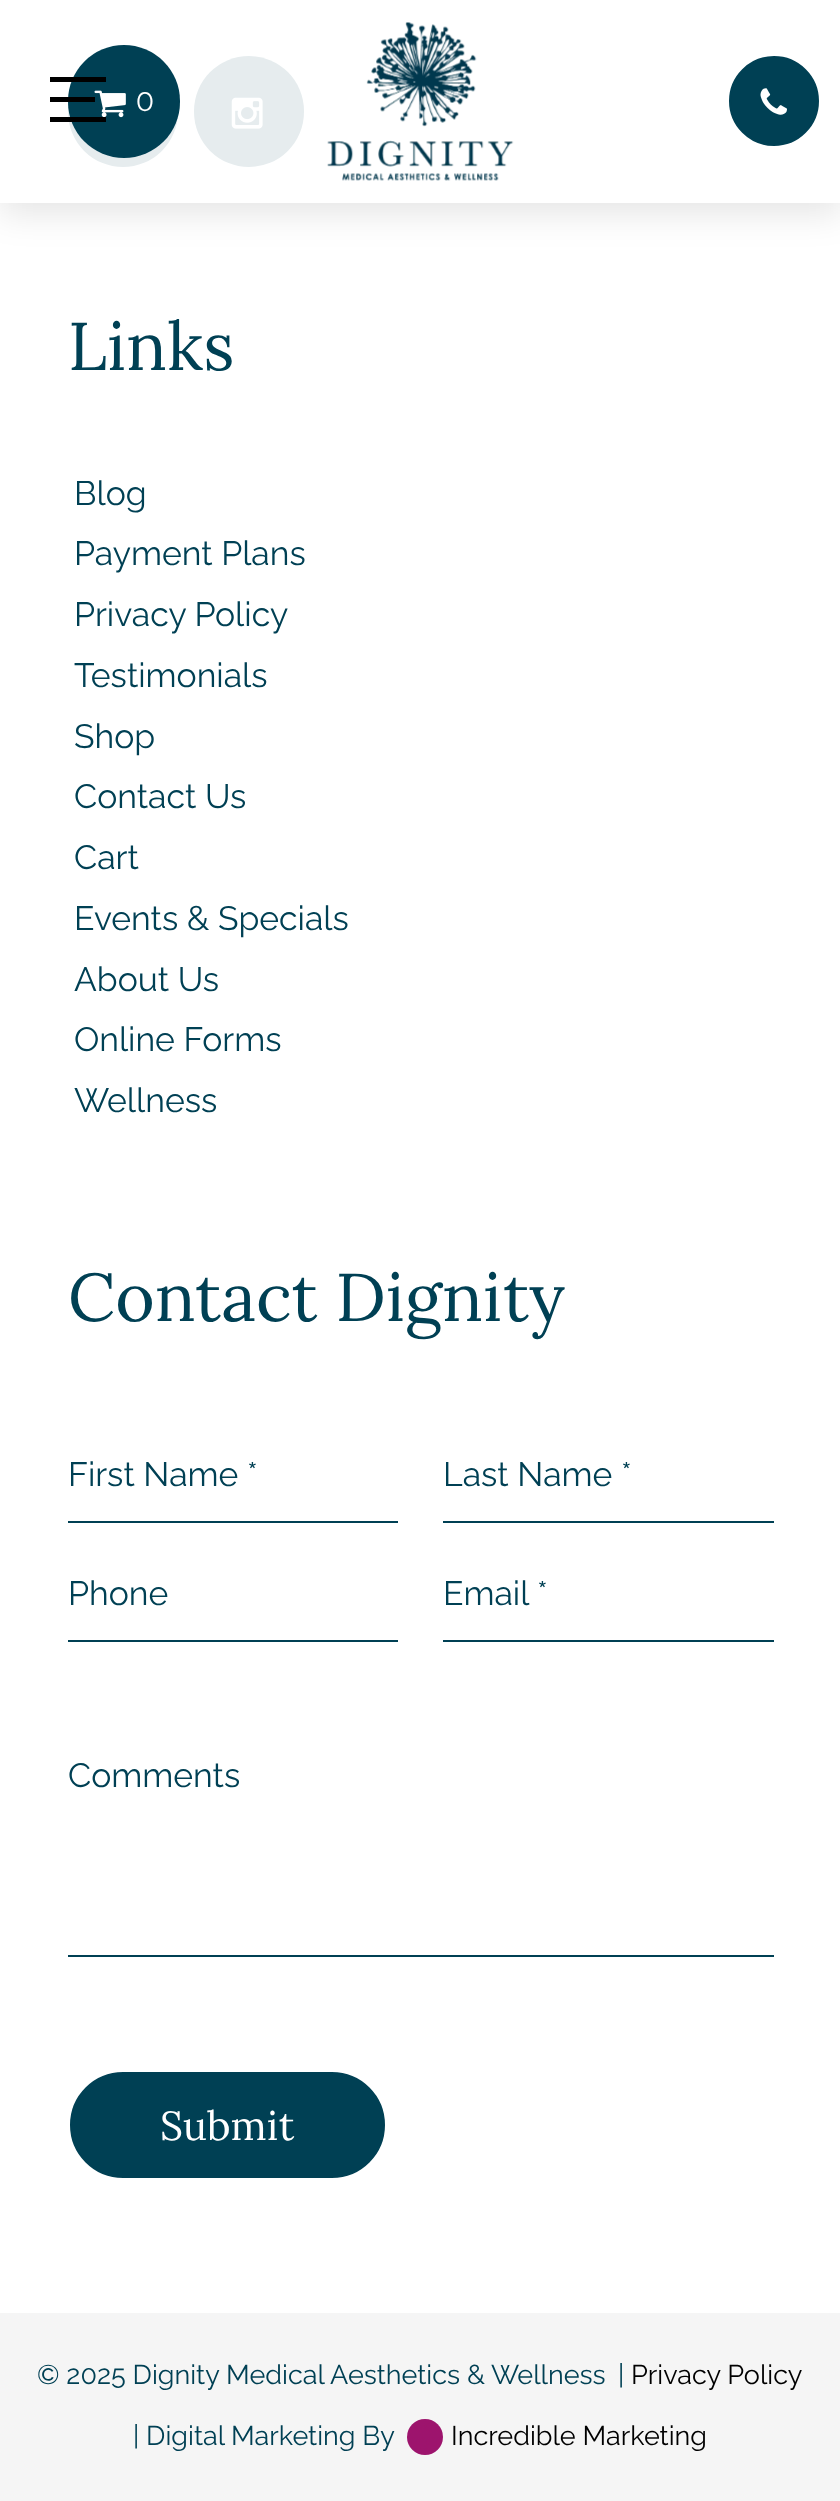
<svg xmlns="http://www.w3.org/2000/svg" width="840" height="2501">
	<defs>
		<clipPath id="clip1"><path d="M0 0H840V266H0ZM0 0H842V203H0Z" clip-rule="evenodd" /></clipPath>
	</defs>
	<rect width="100%" height="100%" fill="#F5F5F5" />
	<rect x="0" y="0" width="840" height="2313" fill="#FFFFFF" />
	<rect x="68" y="56" width="110" height="111" rx="55" fill="#004054" />
	<rect x="194" y="56" width="110" height="111" rx="55" fill="#004054" />
	<image x="231" y="97" width="32" height="32" href="assets/img4.png" />
	<g clip-path="url(#clip1)">
		<rect x="0" y="11" width="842" height="203" fill="#000000" fill-opacity="0.1" filter="blur(17px)" />
	</g>
	<rect x="0" y="56" width="840" height="147" fill="#FFFFFF" fill-opacity="0.9" />
	<rect x="68" y="45" width="112" height="113" rx="56" fill="#004054" />
	<rect x="50" y="77" width="56" height="5" fill="#000000" />
	<image x="94" y="90" width="32" height="28" href="assets/img1.png" />
	<rect x="50" y="97" width="45" height="5" fill="#000000" />
	<rect x="50" y="117" width="56" height="5" fill="#000000" />
	<text x="136" y="111" font-family="Montserrat" font-size="27" fill="#FFFFFF">0</text>
	<circle cx="774" cy="101" r="44" fill="#004054" stroke="#004054" stroke-width="2" />
	<image x="760" y="88" width="27" height="27" href="assets/img2.png" />
	<image x="327" y="22" width="187" height="159" href="assets/img3.png" />
	<text x="68" y="370" font-family="Lora" font-size="67.5" fill="#004054">Links</text>
	<g font-family="Raleway" font-size="33.75" fill="#004054">
		<text x="74" y="505">Blog</text>
		<text x="74" y="565">Payment Plans</text>
		<text x="74" y="626">Privacy Policy</text>
		<text x="74" y="687">Testimonials</text>
		<text x="74" y="748">Shop</text>
		<text x="74" y="808">Contact Us</text>
		<text x="74" y="869">Cart</text>
		<text x="74" y="930">Events &amp; Specials</text>
		<text x="74" y="991">About Us</text>
		<text x="74" y="1051">Online Forms</text>
		<text x="74" y="1112">Wellness</text>
	</g>
	<text x="68" y="1321" font-family="Lora" font-size="67.5" fill="#004054">Contact Dignity</text>
	<rect x="68" y="1521" width="330" height="2" fill="#004054" />
	<text x="68" y="1486" font-family="Raleway" font-size="33.75" fill="#004054">First Name *</text>
	<rect x="443" y="1521" width="331" height="2" fill="#004054" />
	<text x="443" y="1486" font-family="Raleway" font-size="33.75" fill="#004054">Last Name *</text>
	<rect x="68" y="1640" width="330" height="2" fill="#004054" />
	<text x="68" y="1605" font-family="Raleway" font-size="33.75" fill="#004054">Phone</text>
	<rect x="443" y="1640" width="331" height="2" fill="#004054" />
	<text x="443" y="1605" font-family="Raleway" font-size="33.75" fill="#004054">Email *</text>
	<rect x="68" y="1955" width="706" height="2" fill="#004054" />
	<text x="68" y="1787" font-family="Raleway" font-size="33.75" fill="#004054">Comments</text>
	<rect x="69" y="2071" width="317" height="108" rx="54" fill="#004054" stroke="#FFFFFF" stroke-width="2" />
	<text x="160" y="2140" font-family="Lora" font-size="40.5" fill="#FFFFFF">Submit</text>
	<text x="37" y="2384" font-family="Raleway" font-size="27" fill="#004054">© 2025 Dignity Medical Aesthetics &amp; Wellness</text>
	<text x="618" y="2384" font-family="Raleway" font-size="27" fill="#004054">|</text>
	<text x="631" y="2384" font-family="Raleway" font-size="27" fill="#000000">Privacy Policy</text>
	<text x="133" y="2445" font-family="Raleway" font-size="27" fill="#004054">| Digital Marketing By</text>
	<circle cx="425" cy="2437" r="18" fill="#9D146D" />
	<text x="451" y="2445" font-family="Raleway" font-size="27" fill="#000000">Incredible Marketing</text>
</svg>
